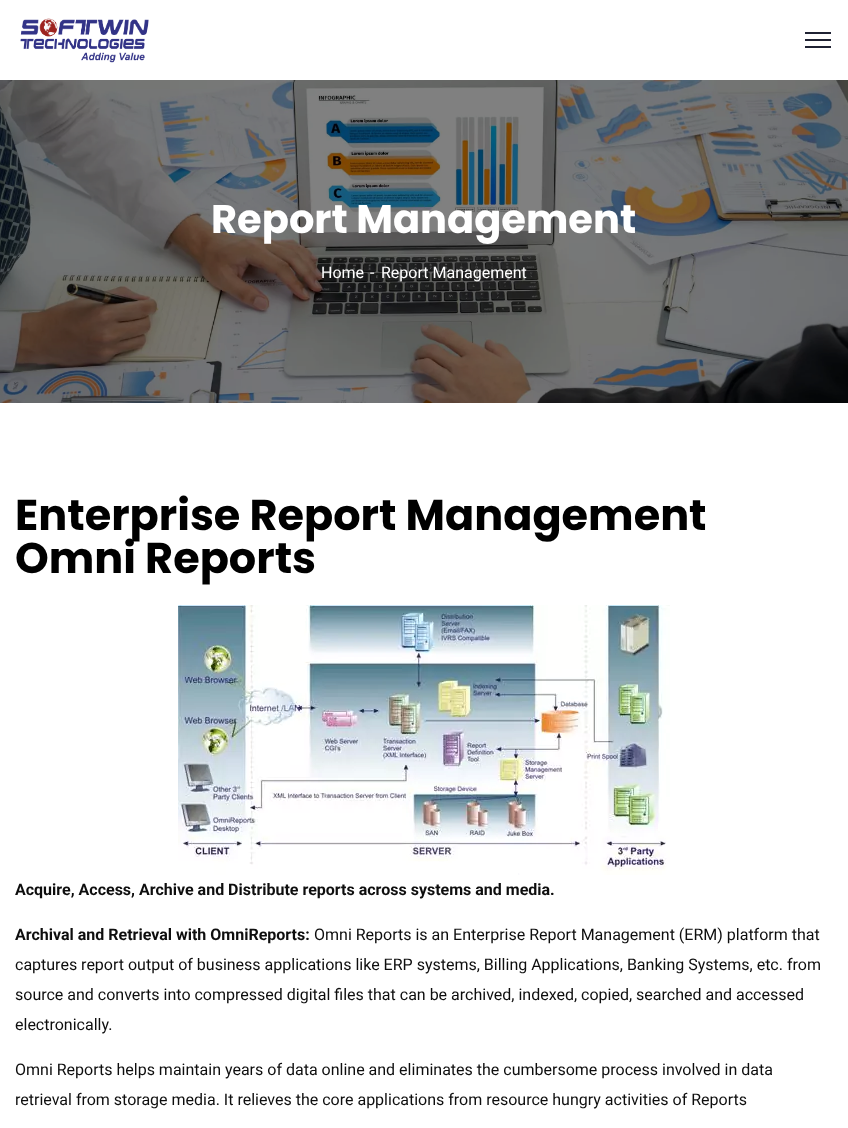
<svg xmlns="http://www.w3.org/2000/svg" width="848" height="1128">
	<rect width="100%" height="100%" fill="#FFFFFF" />
	<image x="20" y="18" width="129" height="45" href="assets/img1.png" />
	<rect x="805" y="32" width="26" height="2" fill="#1F2233" />
	<rect x="805" y="39" width="26" height="2" fill="#1F2233" />
	<rect x="805" y="46" width="26" height="2" fill="#1F2233" />
	<image x="0" y="80" width="848" height="323" href="assets/img2.png" />
	<text x="211" y="233" font-family="Poppins" font-size="40" font-weight="700" fill="#FFFFFF">Report Management</text>
	<g font-family="Roboto" font-size="16" fill="#FFFFFF">
		<text x="321" y="278">Home</text>
		<text x="370" y="278">-</text>
		<text x="381" y="278">Report Management</text>
	</g>
	<g font-family="Poppins" font-size="43" font-weight="700" fill="#000000">
		<text x="15" y="530">Enterprise Report Management</text>
		<text x="15" y="573">Omni Reports</text>
	</g>
	<image x="178" y="605" width="492" height="270" href="assets/img3.png" />
	<g font-family="Roboto" font-size="16" font-weight="700" fill="#0E0E0E">
		<text x="15" y="895">Acquire, Access, Archive and Distribute reports across systems and media.</text>
		<text x="15" y="940">Archival and Retrieval with OmniReports:</text>
	</g>
	<g font-family="Roboto" font-size="16" fill="#0E0E0E">
		<text x="314" y="940">Omni Reports is an Enterprise Report Management (ERM) platform that</text>
		<text x="15" y="970">captures report output of business applications like ERP systems, Billing Applications, Banking Systems, etc. from</text>
		<text x="15" y="1000">source and converts into compressed digital files that can be archived, indexed, copied, searched and accessed</text>
		<text x="15" y="1030">electronically.</text>
		<text x="15" y="1075">Omni Reports helps maintain years of data online and eliminates the cumbersome process involved in data</text>
		<text x="15" y="1105">retrieval from storage media. It relieves the core applications from resource hungry activities of Reports</text>
	</g>
</svg>
